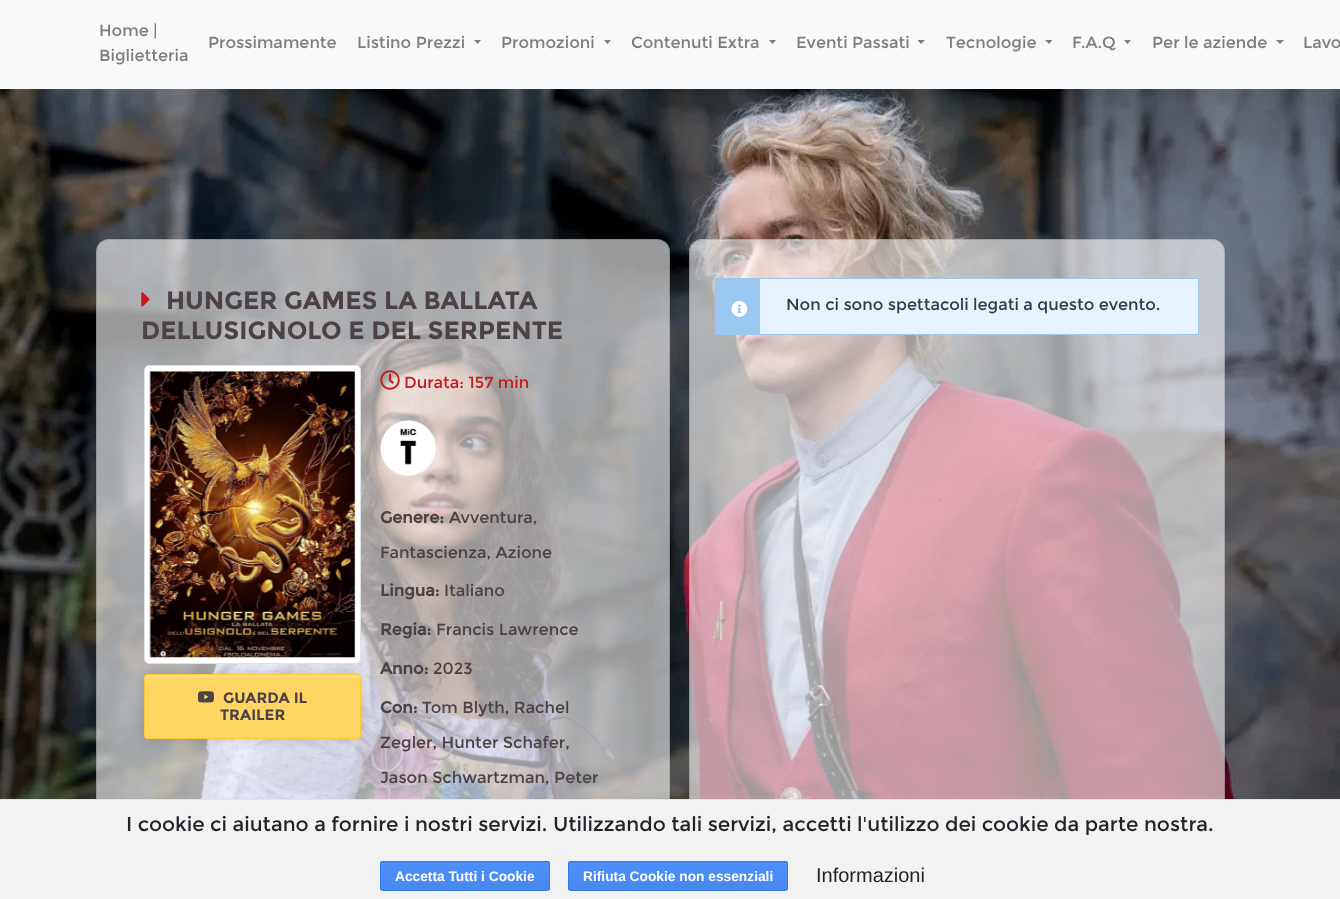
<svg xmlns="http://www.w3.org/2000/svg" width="1340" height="899">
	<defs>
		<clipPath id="clip1"><rect x="380" y="861" width="170" height="30" rx="2.5" /></clipPath>
		<linearGradient id="g1" gradientUnits="userSpaceOnUse" x1="465" y1="835" x2="465" y2="863"><stop offset="0" stop-color="#4D90FE" /><stop offset="1" stop-color="#4787ED" /></linearGradient>
		<linearGradient id="g2" gradientUnits="userSpaceOnUse" x1="465" y1="863" x2="465" y2="890"><stop offset="0" stop-color="#4D90FE" /><stop offset="1" stop-color="#4787ED" /></linearGradient>
		<clipPath id="clip2"><rect x="568" y="861" width="220" height="30" rx="2.5" /></clipPath>
		<linearGradient id="g3" gradientUnits="userSpaceOnUse" x1="678" y1="835" x2="678" y2="863"><stop offset="0" stop-color="#4D90FE" /><stop offset="1" stop-color="#4787ED" /></linearGradient>
		<linearGradient id="g4" gradientUnits="userSpaceOnUse" x1="678" y1="863" x2="678" y2="890"><stop offset="0" stop-color="#4D90FE" /><stop offset="1" stop-color="#4787ED" /></linearGradient>
	</defs>
	<rect width="100%" height="100%" fill="#FFFFFF" />
	<rect x="0" y="0" width="1340" height="89" fill="#F8F9FA" />
	<g font-family="Montserrat" font-size="16.25" fill="#7C7D7D">
		<text x="99" y="36">Home |</text>
		<text x="99" y="61">Biglietteria</text>
		<text x="208" y="48">Prossimamente</text>
		<text x="357" y="48">Listino Prezzi</text>
	</g>
	<path d="M474 40H481L477.5 44Z" fill="#7C7D7D" />
	<text x="501" y="48" font-family="Montserrat" font-size="16.25" fill="#7C7D7D">Promozioni</text>
	<path d="M604 40H611L607.5 44Z" fill="#7C7D7D" />
	<text x="631" y="48" font-family="Montserrat" font-size="16.25" fill="#7C7D7D">Contenuti Extra</text>
	<path d="M769 40H776L772.5 44Z" fill="#7C7D7D" />
	<text x="796" y="48" font-family="Montserrat" font-size="16.25" fill="#7C7D7D">Eventi Passati</text>
	<path d="M917.5 40H925L921 44Z" fill="#7C7D7D" />
	<text x="946" y="48" font-family="Montserrat" font-size="16.25" fill="#7C7D7D">Tecnologie</text>
	<path d="M1045 40H1052.5L1049 44Z" fill="#7C7D7D" />
	<text x="1072" y="48" font-family="Montserrat" font-size="16.25" fill="#7C7D7D">F.A.Q</text>
	<path d="M1124 40H1131L1127.5 44Z" fill="#7C7D7D" />
	<text x="1152" y="48" font-family="Montserrat" font-size="16.25" fill="#7C7D7D">Per le aziende</text>
	<path d="M1276 40H1284L1280 44Z" fill="#7C7D7D" />
	<text x="1303" y="48" font-family="Montserrat" font-size="16.25" fill="#7C7D7D">Lavo</text>
	<image x="0" y="89" width="1340" height="710" href="assets/img1.png" />
	<rect x="96" y="239" width="574" height="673" rx="13" fill="#FFFFFF" fill-opacity="0.6" />
	<rect x="96.5" y="239.5" width="573" height="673" rx="12.5" fill="none" stroke="#000000" stroke-opacity="0.12" />
	<image x="141" y="292" width="9" height="15" href="assets/img2.png" />
	<g font-family="Montserrat" font-size="25" font-weight="700" fill="#4C4145">
		<text x="166" y="309">HUNGER GAMES LA BALLATA</text>
		<text x="141" y="339">DELLUSIGNOLO E DEL SERPENTE</text>
	</g>
	<rect x="144" y="674" width="217" height="65" rx="4" fill="#000000" fill-opacity="0.16" filter="blur(6px)" />
	<rect x="144.5" y="365.5" width="216" height="298" rx="4.5" fill="#FFFFFF" stroke="#DEE2E6" />
	<image x="149" y="371" width="207" height="287" href="assets/img3.png" />
	<rect x="144" y="674" width="217" height="65" rx="4" fill="#FFD564" />
	<path d="M148 678H358C359 678 360 679 360 680C360 678 360 675 358 675H148C145 675 145 678 145 680C145 679 146 678 148 678Z" fill="#FFDD83" />
	<rect x="144.5" y="674.5" width="216" height="64" rx="3.5" fill="none" stroke="#FFC936" />
	<image x="197" y="691" width="17" height="12" href="assets/img4.png" />
	<g font-family="Montserrat" font-size="15" font-weight="700" fill="#4C4145">
		<text x="223" y="703">GUARDA IL</text>
		<text x="220" y="720">TRAILER</text>
	</g>
	<image x="380" y="370" width="20" height="20" href="assets/img5.png" />
	<text x="404" y="388" font-family="Montserrat" font-size="16.25" fill="#C31C1D">Durata: 157 min</text>
	<image x="380" y="420" width="57" height="57" href="assets/img6.png" />
	<text x="380" y="523" font-family="'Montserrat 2'" font-size="16.25" font-weight="700" fill="#4C4145">Genere:</text>
	<g font-family="Montserrat" font-size="16.25" fill="#4C4145">
		<text x="449" y="523">Avventura,</text>
		<text x="380" y="558">Fantascienza, Azione</text>
	</g>
	<text x="380" y="596" font-family="'Montserrat 2'" font-size="16.25" font-weight="700" fill="#4C4145">Lingua:</text>
	<text x="444" y="596" font-family="Montserrat" font-size="16.25" fill="#4C4145">Italiano</text>
	<text x="380" y="635" font-family="'Montserrat 2'" font-size="16.25" font-weight="700" fill="#4C4145">Regia:</text>
	<text x="436" y="635" font-family="Montserrat" font-size="16.25" fill="#4C4145">Francis Lawrence</text>
	<text x="380" y="674" font-family="'Montserrat 2'" font-size="16.25" font-weight="700" fill="#4C4145">Anno:</text>
	<text x="433" y="674" font-family="Montserrat" font-size="16.25" fill="#4C4145">2023</text>
	<text x="380" y="713" font-family="'Montserrat 2'" font-size="16.25" font-weight="700" fill="#4C4145">Con:</text>
	<g font-family="Montserrat" font-size="16.25" fill="#4C4145">
		<text x="422" y="713">Tom Blyth, Rachel</text>
		<text x="380" y="748">Zegler, Hunter Schafer,</text>
		<text x="380" y="783">Jason Schwartzman, Peter</text>
	</g>
	<rect x="689" y="239" width="536" height="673" rx="13" fill="#FFFFFF" fill-opacity="0.6" />
	<rect x="689.5" y="239.5" width="535" height="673" rx="12.5" fill="none" stroke="#000000" stroke-opacity="0.12" />
	<rect x="760" y="279" width="438" height="55" fill="#E7F4FF" />
	<rect x="715.5" y="278.5" width="483" height="56" fill="none" stroke="#9AC8F1" />
	<rect x="716" y="279" width="44" height="55" fill="#9AC8F1" />
	<image x="731" y="301" width="17" height="16" href="assets/img7.png" />
	<text x="786" y="310" font-family="Montserrat" font-size="16.25" fill="#343A40">Non ci sono spettacoli legati a questo evento.</text>
	<rect x="0" y="800" width="1340" height="99" fill="#F2F2F2" />
	<rect x="0" y="799" width="1340" height="1" fill="#E4E4E4" />
	<text x="126" y="831" font-family="Montserrat" font-size="20" fill="#212529">I cookie ci aiutano a fornire i nostri servizi. Utilizzando tali servizi, accetti l'utilizzo dei cookie da parte nostra.</text>
	<g clip-path="url(#clip1)">
		<rect x="380" y="861" width="170" height="2" fill="url(#g1)" />
	</g>
	<rect x="380" y="863" width="170" height="27" fill="url(#g2)" />
	<rect x="380.5" y="861.5" width="169" height="29" rx="2" fill="none" stroke="#3079ED" />
	<text x="395" y="881" font-family="Liberation Sans" font-size="13.75" font-weight="700" fill="#FFFFFF">Accetta Tutti i Cookie</text>
	<g clip-path="url(#clip2)">
		<rect x="568" y="861" width="220" height="2" fill="url(#g3)" />
	</g>
	<rect x="568" y="863" width="220" height="27" fill="url(#g4)" />
	<rect x="568.5" y="861.5" width="219" height="29" rx="2" fill="none" stroke="#3079ED" />
	<text x="583" y="881" font-family="Liberation Sans" font-size="13.75" font-weight="700" fill="#FFFFFF">Rifiuta Cookie non essenziali</text>
	<text x="816" y="882" font-family="Liberation Sans" font-size="20" fill="#212529">Informazioni</text>
</svg>
